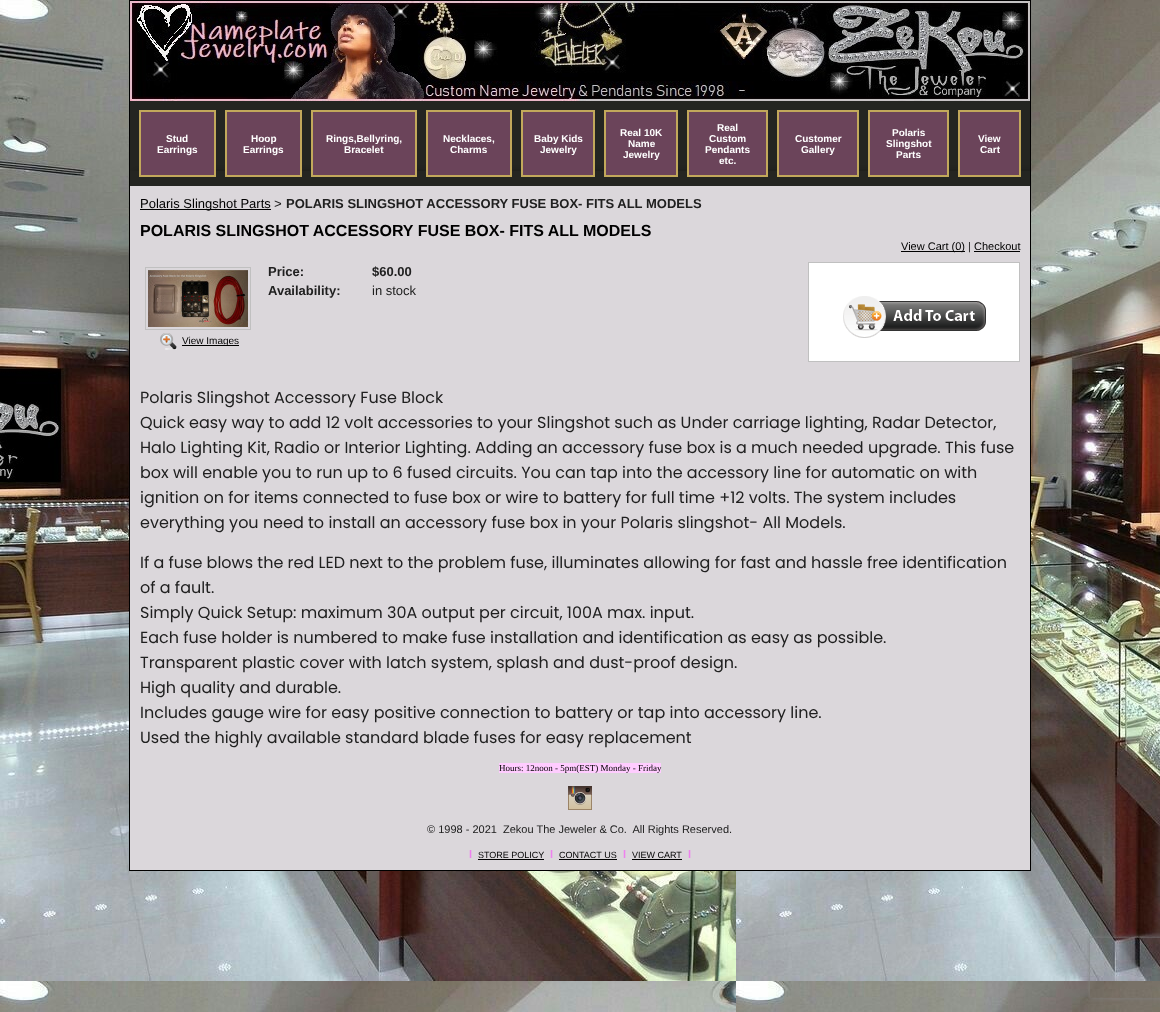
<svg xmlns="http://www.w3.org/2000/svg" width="1160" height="1012">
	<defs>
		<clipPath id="clip1"><path d="M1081 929H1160V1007H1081ZM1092 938H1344C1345 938 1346 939 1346 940V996C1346 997 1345 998 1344 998H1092C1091 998 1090 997 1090 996V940C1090 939 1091 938 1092 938Z" clip-rule="evenodd" /></clipPath>
	</defs>
	<rect width="100%" height="100%" fill="#FFFFFF" />
	<image x="0" y="0" width="1160" height="1012" href="assets/img1.png" />
	<rect x="129" y="0" width="902" height="871" fill="#000000" />
	<image x="130" y="1" width="900" height="100" href="assets/img2.png" />
	<image x="130" y="101" width="900" height="85" href="assets/img3.png" />
	<rect x="139" y="110" width="77" height="67" fill="#C2A85B" />
	<rect x="141" y="112" width="73" height="63" fill="#6B445A" />
	<g font-family="Liberation Sans" font-size="10" font-weight="700" fill="#FFFFFF">
		<text x="166" y="142">Stud</text>
		<text x="157" y="153">Earrings</text>
	</g>
	<rect x="225" y="110" width="77" height="67" fill="#C2A85B" />
	<rect x="227" y="112" width="73" height="63" fill="#6B445A" />
	<g font-family="Liberation Sans" font-size="10" font-weight="700" fill="#FFFFFF">
		<text x="251" y="142">Hoop</text>
		<text x="243" y="153">Earrings</text>
	</g>
	<rect x="311" y="110" width="106" height="67" fill="#C2A85B" />
	<rect x="313" y="112" width="102" height="63" fill="#6B445A" />
	<g font-family="Liberation Sans" font-size="10" font-weight="700" fill="#FFFFFF">
		<text x="326" y="142">Rings,Bellyring,</text>
		<text x="344" y="153">Bracelet</text>
	</g>
	<rect x="426" y="110" width="86" height="67" fill="#C2A85B" />
	<rect x="428" y="112" width="82" height="63" fill="#6B445A" />
	<g font-family="Liberation Sans" font-size="10" font-weight="700" fill="#FFFFFF">
		<text x="443" y="142">Necklaces,</text>
		<text x="450" y="153">Charms</text>
	</g>
	<rect x="521" y="110" width="74" height="67" fill="#C2A85B" />
	<rect x="523" y="112" width="70" height="63" fill="#6B445A" />
	<g font-family="Liberation Sans" font-size="10" font-weight="700" fill="#FFFFFF">
		<text x="534" y="142">Baby Kids</text>
		<text x="540" y="153">Jewelry</text>
	</g>
	<rect x="604" y="110" width="74" height="67" fill="#C2A85B" />
	<rect x="606" y="112" width="70" height="63" fill="#6B445A" />
	<g font-family="Liberation Sans" font-size="10" font-weight="700" fill="#FFFFFF">
		<text x="620" y="136">Real 10K</text>
		<text x="628" y="147">Name</text>
		<text x="623" y="158">Jewelry</text>
	</g>
	<rect x="687" y="110" width="81" height="67" fill="#C2A85B" />
	<rect x="689" y="112" width="77" height="63" fill="#6B445A" />
	<g font-family="Liberation Sans" font-size="10" font-weight="700" fill="#FFFFFF">
		<text x="717" y="131">Real</text>
		<text x="709" y="142">Custom</text>
		<text x="705" y="153">Pendants</text>
		<text x="719" y="164">etc.</text>
	</g>
	<rect x="777" y="110" width="82" height="67" fill="#C2A85B" />
	<rect x="779" y="112" width="78" height="63" fill="#6B445A" />
	<g font-family="Liberation Sans" font-size="10" font-weight="700" fill="#FFFFFF">
		<text x="795" y="142">Customer</text>
		<text x="801" y="153">Gallery</text>
	</g>
	<rect x="868" y="110" width="81" height="67" fill="#C2A85B" />
	<rect x="870" y="112" width="77" height="63" fill="#6B445A" />
	<g font-family="Liberation Sans" font-size="10" font-weight="700" fill="#FFFFFF">
		<text x="892" y="136">Polaris</text>
		<text x="886" y="147">Slingshot</text>
		<text x="896" y="158">Parts</text>
	</g>
	<rect x="958" y="110" width="63" height="67" fill="#C2A85B" />
	<rect x="960" y="112" width="59" height="63" fill="#6B445A" />
	<g font-family="Liberation Sans" font-size="10" font-weight="700" fill="#FFFFFF">
		<text x="978" y="142">View</text>
		<text x="980" y="153">Cart</text>
	</g>
	<rect x="130" y="186" width="900" height="684" fill="#DBD7DB" />
	<rect x="140" y="209" width="131" height="1" fill="#000000" />
	<text x="140" y="208" font-family="Liberation Sans" font-size="13" fill="#000000">Polaris Slingshot Parts</text>
	<text x="274" y="208" font-family="Liberation Mono" font-size="13" fill="#202020">&gt;</text>
	<text x="286" y="208" font-family="Liberation Sans" font-size="13" font-weight="700" fill="#202020">POLARIS SLINGSHOT ACCESSORY FUSE BOX- FITS ALL MODELS</text>
	<text x="140" y="236" font-family="Liberation Sans" font-size="16" font-weight="700" fill="#000000">POLARIS SLINGSHOT ACCESSORY FUSE BOX- FITS ALL MODELS</text>
	<rect x="901" y="251" width="64" height="1" fill="#000000" />
	<text x="901" y="250" font-family="Liberation Sans" font-size="11" fill="#000000">View Cart (0)</text>
	<text x="968" y="250" font-family="Liberation Sans" font-size="11" fill="#202020">|</text>
	<text x="974" y="250" font-family="Liberation Sans" font-size="11" fill="#000000">Checkout</text>
	<rect x="974" y="251" width="46" height="1" fill="#000000" />
	<g font-family="Liberation Sans" font-size="13" font-weight="700" fill="#202020">
		<text x="268" y="276">Price:</text>
		<text x="372" y="276">$60.00</text>
		<text x="268" y="295">Availability:</text>
	</g>
	<text x="372" y="295" font-family="Liberation Sans" font-size="13" fill="#202020">in stock</text>
	<rect x="145.5" y="267.5" width="105" height="62" fill="none" stroke="#C0C0C0" />
	<image x="148" y="270" width="100" height="57" href="assets/img4.png" />
	<image x="160" y="333" width="17" height="17" href="assets/img5.png" />
	<rect x="182" y="345" width="57" height="1" fill="#000000" />
	<text x="182" y="344" font-family="Liberation Sans" font-size="10" fill="#000000">View Images</text>
	<rect x="808.5" y="262.5" width="211" height="99" fill="#FFFFFF" stroke="#C0C0C0" />
	<image x="843" y="296" width="143" height="42" href="assets/img6.png" />
	<g font-family="Poppins" font-size="16" fill="#202020">
		<text x="140" y="403">Polaris Slingshot Accessory Fuse Block</text>
		<text x="140" y="428">Quick easy way to add 12 volt accessories to your Slingshot such as Under carriage lighting, Radar Detector,</text>
		<text x="140" y="453">Halo Lighting Kit, Radio or Interior Lighting. Adding an accessory fuse box is a much needed upgrade. This fuse</text>
		<text x="140" y="478">box will enable you to run up to 6 fused circuits. You can tap into the accessory line for automatic on with</text>
		<text x="140" y="503">ignition on for items connected to fuse box or wire to battery for full time +12 volts. The system includes</text>
		<text x="140" y="528">everything you need to install an accessory fuse box in your Polaris slingshot- All Models.</text>
		<text x="140" y="568">If a fuse blows the red LED next to the problem fuse, illuminates allowing for fast and hassle free identification</text>
		<text x="140" y="593">of a fault.</text>
		<text x="140" y="618">Simply Quick Setup: maximum 30A output per circuit, 100A max. input.</text>
		<text x="140" y="643">Each fuse holder is numbered to make fuse installation and identification as easy as possible.</text>
		<text x="140" y="668">Transparent plastic cover with latch system, splash and dust-proof design.</text>
		<text x="140" y="693">High quality and durable.</text>
		<text x="140" y="718">Includes gauge wire for easy positive connection to battery or tap into accessory line.</text>
		<text x="140" y="743">Used the highly available standard blade fuses for easy replacement</text>
	</g>
	<rect x="499" y="763" width="162" height="10" fill="#FFCCFF" />
	<text x="499" y="771" font-family="Liberation Serif" font-size="9" fill="#000000">Hours: 12noon - 5pm(EST) Monday - Friday</text>
	<image x="568" y="786" width="24" height="24" href="assets/img7.png" />
	<text x="427" y="833" font-family="Liberation Sans" font-size="11" fill="#202020" xml:space="preserve">© 1998 - 2021  Zekou The Jeweler &amp; Co.  All Rights Reserved.</text>
	<text x="469" y="858" font-family="Liberation Sans" font-size="11" font-weight="700" fill="#EE82EE">l</text>
	<text x="478" y="858" font-family="Liberation Sans" font-size="9" fill="#000000">STORE POLICY</text>
	<rect x="478" y="859" width="66" height="1" fill="#000000" />
	<text x="550" y="858" font-family="Liberation Sans" font-size="11" font-weight="700" fill="#EE82EE">l</text>
	<text x="559" y="858" font-family="Liberation Sans" font-size="9" fill="#000000">CONTACT US</text>
	<rect x="559" y="859" width="58" height="1" fill="#000000" />
	<text x="623" y="858" font-family="Liberation Sans" font-size="11" font-weight="700" fill="#EE82EE">l</text>
	<text x="632" y="858" font-family="Liberation Sans" font-size="9" fill="#000000">VIEW CART</text>
	<rect x="632" y="859" width="50" height="1" fill="#000000" />
	<text x="688" y="858" font-family="Liberation Sans" font-size="11" font-weight="700" fill="#EE82EE">l</text>
	<g clip-path="url(#clip1)">
		<rect x="1090" y="938" width="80" height="60" rx="2" fill="#808080" filter="blur(2.5px)" />
	</g>
</svg>
